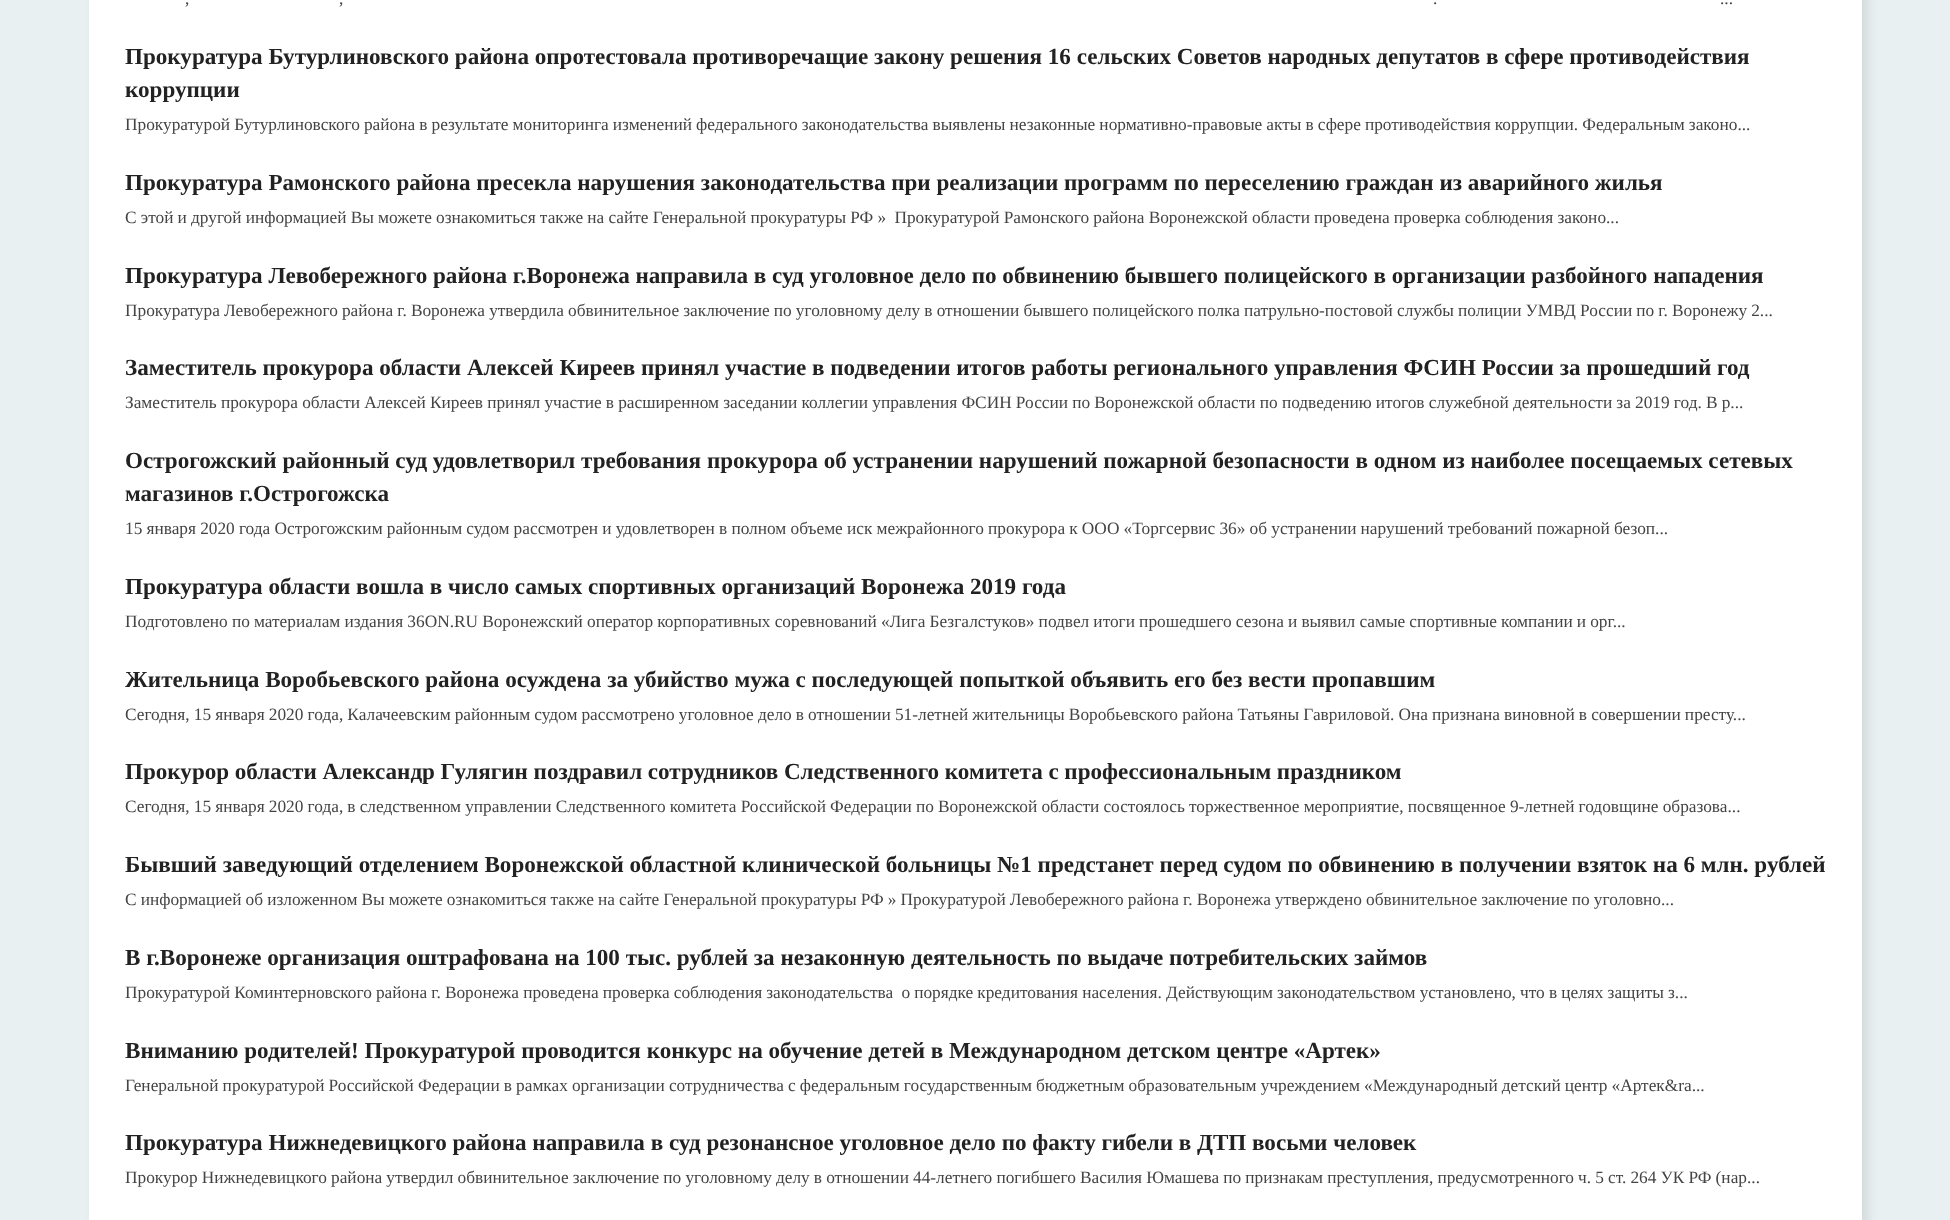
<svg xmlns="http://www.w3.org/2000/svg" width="1950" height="1220">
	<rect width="100%" height="100%" fill="#E9F0F2" />
	<rect x="95" y="-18" width="1772" height="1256" fill="#000000" fill-opacity="0.1" filter="blur(6px)" />
	<rect x="89" y="0" width="1773" height="1220" fill="#FFFFFF" />
	<g font-family="Liberation Serif" font-size="17.32" fill="#444444">
		<text x="185" y="4" word-spacing="-0.15">,</text>
		<text x="339" y="4" word-spacing="-0.15">,</text>
		<text x="1433" y="4" word-spacing="-0.15">.</text>
		<text x="1720" y="4" word-spacing="-0.15">...</text>
	</g>
	<g font-family="Liberation Serif" font-size="23.1" font-weight="700" fill="#222222">
		<text x="125" y="64">Прокуратура Бутурлиновского района опротестовала противоречащие закону решения 16 сельских Советов народных депутатов в сфере противодействия</text>
		<text x="125" y="97">коррупции</text>
	</g>
	<text x="125" y="130" word-spacing="-0.25" font-family="Liberation Serif" font-size="17.32" fill="#444444">Прокуратурой Бутурлиновского района в результате мониторинга изменений федерального законодательства выявлены незаконные нормативно-правовые акты в сфере противодействия коррупции. Федеральным законо...</text>
	<text x="125" y="190" font-family="Liberation Serif" font-size="23.1" font-weight="700" fill="#222222">Прокуратура Рамонского района пресекла нарушения законодательства при реализации программ по переселению граждан из аварийного жилья</text>
	<text x="125" y="223" word-spacing="-0.15" font-family="Liberation Serif" font-size="17.32" fill="#444444" xml:space="preserve">С этой и другой информацией Вы можете ознакомиться также на сайте Генеральной прокуратуры РФ »  Прокуратурой Рамонского района Воронежской области проведена проверка соблюдения законо...</text>
	<text x="125" y="283" font-family="Liberation Serif" font-size="23.1" font-weight="700" fill="#222222">Прокуратура Левобережного района г.Воронежа направила в суд уголовное дело по обвинению бывшего полицейского в организации разбойного нападения</text>
	<text x="125" y="316" word-spacing="-0.2" font-family="Liberation Serif" font-size="17.32" fill="#444444">Прокуратура Левобережного района г. Воронежа утвердила обвинительное заключение по уголовному делу в отношении бывшего полицейского полка патрульно-постовой службы полиции УМВД России по г. Воронежу 2...</text>
	<text x="125" y="375" font-family="Liberation Serif" font-size="23.1" font-weight="700" fill="#222222">Заместитель прокурора области Алексей Киреев принял участие в подведении итогов работы регионального управления ФСИН России за прошедший год</text>
	<text x="125" y="408" word-spacing="-0.15" font-family="Liberation Serif" font-size="17.32" fill="#444444">Заместитель прокурора области Алексей Киреев принял участие в расширенном заседании коллегии управления ФСИН России по Воронежской области по подведению итогов служебной деятельности за 2019 год. В р...</text>
	<g font-family="Liberation Serif" font-size="23.1" font-weight="700" fill="#222222">
		<text x="125" y="468">Острогожский районный суд удовлетворил требования прокурора об устранении нарушений пожарной безопасности в одном из наиболее посещаемых сетевых</text>
		<text x="125" y="501">магазинов г.Острогожска</text>
	</g>
	<text x="125" y="534" word-spacing="-0.15" font-family="Liberation Serif" font-size="17.32" fill="#444444">15 января 2020 года Острогожским районным судом рассмотрен и удовлетворен в полном объеме иск межрайонного прокурора к ООО «Торгсервис 36» об устранении нарушений требований пожарной безоп...</text>
	<text x="125" y="594" font-family="Liberation Serif" font-size="23.1" font-weight="700" fill="#222222">Прокуратура области вошла в число самых спортивных организаций Воронежа 2019 года</text>
	<text x="125" y="627" word-spacing="-0.2" font-family="Liberation Serif" font-size="17.32" fill="#444444">Подготовлено по материалам издания 36ON.RU Воронежский оператор корпоративных соревнований «Лига Безгалстуков» подвел итоги прошедшего сезона и выявил самые спортивные компании и орг...</text>
	<text x="125" y="687" font-family="Liberation Serif" font-size="23.1" font-weight="700" fill="#222222">Жительница Воробьевского района осуждена за убийство мужа с последующей попыткой объявить его без вести пропавшим</text>
	<text x="125" y="720" word-spacing="-0.2" font-family="Liberation Serif" font-size="17.32" fill="#444444">Сегодня, 15 января 2020 года, Калачеевским районным судом рассмотрено уголовное дело в отношении 51-летней жительницы Воробьевского района Татьяны Гавриловой. Она признана виновной в совершении престу...</text>
	<text x="125" y="779" word-spacing="-0.1" font-family="Liberation Serif" font-size="23.1" font-weight="700" fill="#222222">Прокурор области Александр Гулягин поздравил сотрудников Следственного комитета с профессиональным праздником</text>
	<text x="125" y="812" word-spacing="-0.2" font-family="Liberation Serif" font-size="17.32" fill="#444444">Сегодня, 15 января 2020 года, в следственном управлении Следственного комитета Российской Федерации по Воронежской области состоялось торжественное мероприятие, посвященное 9-летней годовщине образова...</text>
	<text x="125" y="872" font-family="Liberation Serif" font-size="23.1" font-weight="700" fill="#222222">Бывший заведующий отделением Воронежской областной клинической больницы №1 предстанет перед судом по обвинению в получении взяток на 6 млн. рублей</text>
	<text x="125" y="905" word-spacing="-0.2" font-family="Liberation Serif" font-size="17.32" fill="#444444">С информацией об изложенном Вы можете ознакомиться также на сайте Генеральной прокуратуры РФ » Прокуратурой Левобережного района г. Воронежа утверждено обвинительное заключение по уголовно...</text>
	<text x="125" y="965" font-family="Liberation Serif" font-size="23.1" font-weight="700" fill="#222222">В г.Воронеже организация оштрафована на 100 тыс. рублей за незаконную деятельность по выдаче потребительских займов</text>
	<text x="125" y="998" word-spacing="-0.2" font-family="Liberation Serif" font-size="17.32" fill="#444444" xml:space="preserve">Прокуратурой Коминтерновского района г. Воронежа проведена проверка соблюдения законодательства  о порядке кредитования населения. Действующим законодательством установлено, что в целях защиты з...</text>
	<text x="125" y="1058" font-family="Liberation Serif" font-size="23.1" font-weight="700" fill="#222222">Вниманию родителей! Прокуратурой проводится конкурс на обучение детей в Международном детском центре «Артек»</text>
	<text x="125" y="1091" word-spacing="-0.25" font-family="Liberation Serif" font-size="17.32" fill="#444444">Генеральной прокуратурой Российской Федерации в рамках организации сотрудничества с федеральным государственным бюджетным образовательным учреждением «Международный детский центр «Артек&amp;ra...</text>
	<text x="125" y="1150" font-family="Liberation Serif" font-size="23.1" font-weight="700" fill="#222222">Прокуратура Нижнедевицкого района направила в суд резонансное уголовное дело по факту гибели в ДТП восьми человек</text>
	<text x="125" y="1183" word-spacing="-0.2" font-family="Liberation Serif" font-size="17.32" fill="#444444">Прокурор Нижнедевицкого района утвердил обвинительное заключение по уголовному делу в отношении 44-летнего погибшего Василия Юмашева по признакам преступления, предусмотренного ч. 5 ст. 264 УК РФ (нар...</text>
</svg>
